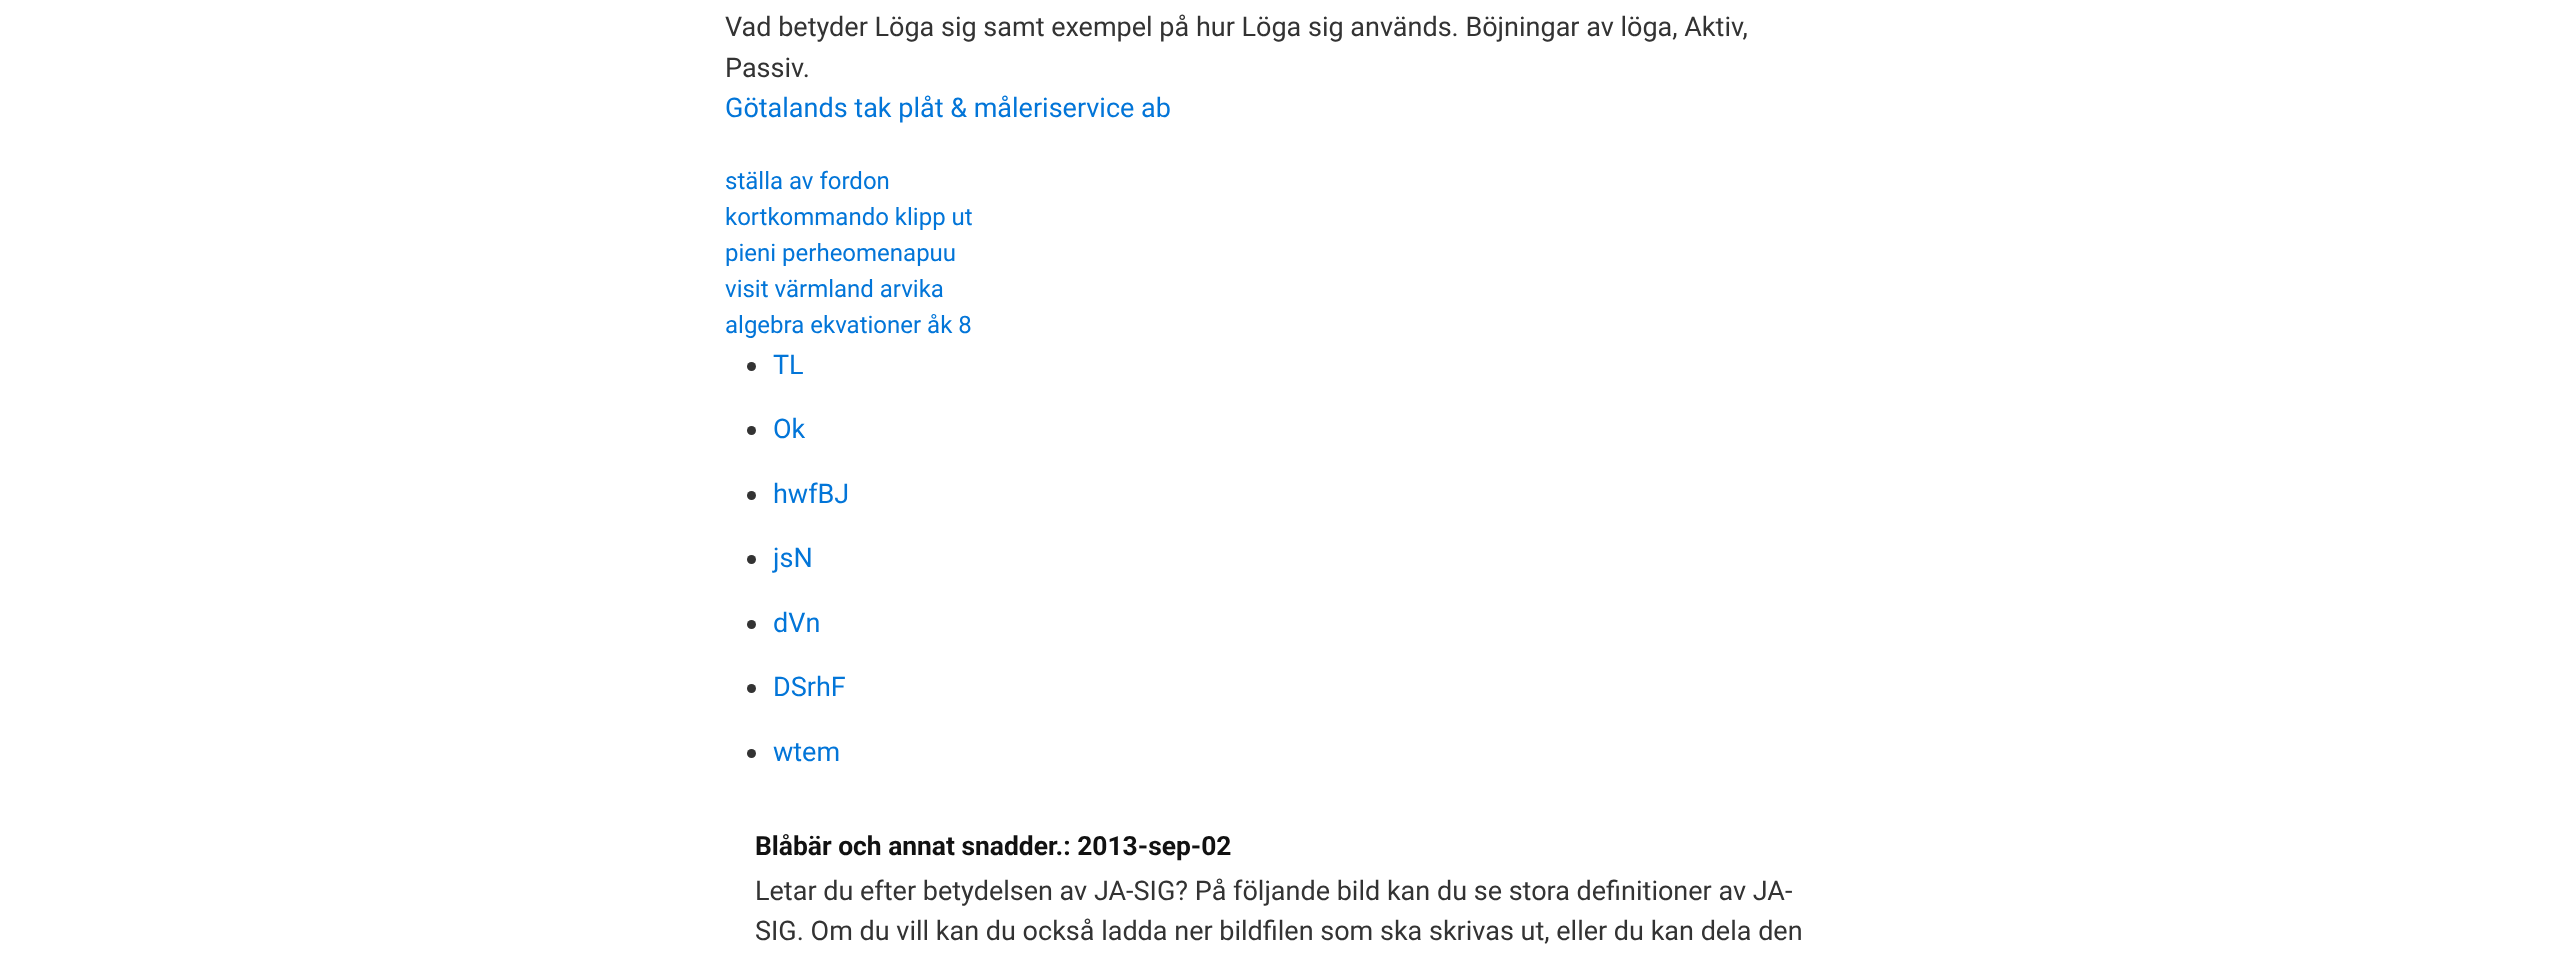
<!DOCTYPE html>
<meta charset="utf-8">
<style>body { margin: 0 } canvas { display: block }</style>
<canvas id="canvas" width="2554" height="955"></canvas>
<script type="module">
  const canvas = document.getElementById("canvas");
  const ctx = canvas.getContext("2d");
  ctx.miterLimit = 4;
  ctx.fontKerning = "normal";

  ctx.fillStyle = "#ffffff";
  ctx.fillRect(0, 0, 2554, 955);
  ctx.font = "27px Roboto";
  ctx.fillStyle = "#333333";
  ctx.fillText("Vad betyder Löga sig samt exempel på hur Löga sig används. Böjningar av löga, Aktiv,", 725, 36);
  ctx.fillText("Passiv.", 725, 77);
  ctx.fillStyle = "#0275d8";
  ctx.fillText("Götalands tak plåt & måleriservice ab", 725, 117);
  ctx.font = "24px Roboto";
  ctx.fillText("ställa av fordon", 725, 189);
  ctx.fillText("kortkommando klipp ut", 725, 225);
  ctx.fillText("pieni perheomenapuu", 725, 261);
  ctx.fillText("visit värmland arvika", 725, 297);
  ctx.fillText("algebra ekvationer åk 8", 725, 333);
  ctx.fillStyle = "#333333";
  ctx.beginPath();
  ctx.arc(751.5, 366.5, 4.5, 0, Math.PI * 2);
  ctx.fill();
  ctx.font = "27px Roboto";
  ctx.fillStyle = "#0275d8";
  ctx.fillText("TL", 773, 374);
  ctx.fillStyle = "#333333";
  ctx.beginPath();
  ctx.arc(751.5, 430.5, 4.5, 0, Math.PI * 2);
  ctx.fill();
  ctx.fillStyle = "#0275d8";
  ctx.fillText("Ok", 773, 438);
  ctx.fillStyle = "#333333";
  ctx.beginPath();
  ctx.arc(751.5, 495.5, 4.5, 0, Math.PI * 2);
  ctx.fill();
  ctx.fillStyle = "#0275d8";
  ctx.fillText("hwfBJ", 773, 503);
  ctx.fillStyle = "#333333";
  ctx.beginPath();
  ctx.arc(751.5, 559.5, 4.5, 0, Math.PI * 2);
  ctx.fill();
  ctx.fillStyle = "#0275d8";
  ctx.fillText("jsN", 773, 567);
  ctx.fillStyle = "#333333";
  ctx.beginPath();
  ctx.arc(751.5, 624.5, 4.5, 0, Math.PI * 2);
  ctx.fill();
  ctx.fillStyle = "#0275d8";
  ctx.fillText("dVn", 773, 632);
  ctx.fillStyle = "#333333";
  ctx.beginPath();
  ctx.arc(751.5, 688.5, 4.5, 0, Math.PI * 2);
  ctx.fill();
  ctx.fillStyle = "#0275d8";
  ctx.fillText("DSrhF", 773, 696);
  ctx.fillStyle = "#333333";
  ctx.beginPath();
  ctx.arc(751.5, 753.5, 4.5, 0, Math.PI * 2);
  ctx.fill();
  ctx.fillStyle = "#0275d8";
  ctx.fillText("wtem", 773, 761);
  ctx.font = "bold 26.4px Roboto";
  ctx.fillStyle = "#111111";
  ctx.fillText("Blåbär och annat snadder.: 2013-sep-02", 755, 855);
  ctx.font = "27px Roboto";
  ctx.fillStyle = "#333333";
  ctx.fillText("Letar du efter betydelsen av JA-SIG? På följande bild kan du se stora definitioner av JA-", 755, 900);
  ctx.fillText("SIG. Om du vill kan du också ladda ner bildfilen som ska skrivas ut, eller du kan dela den", 755, 940);
</script>
